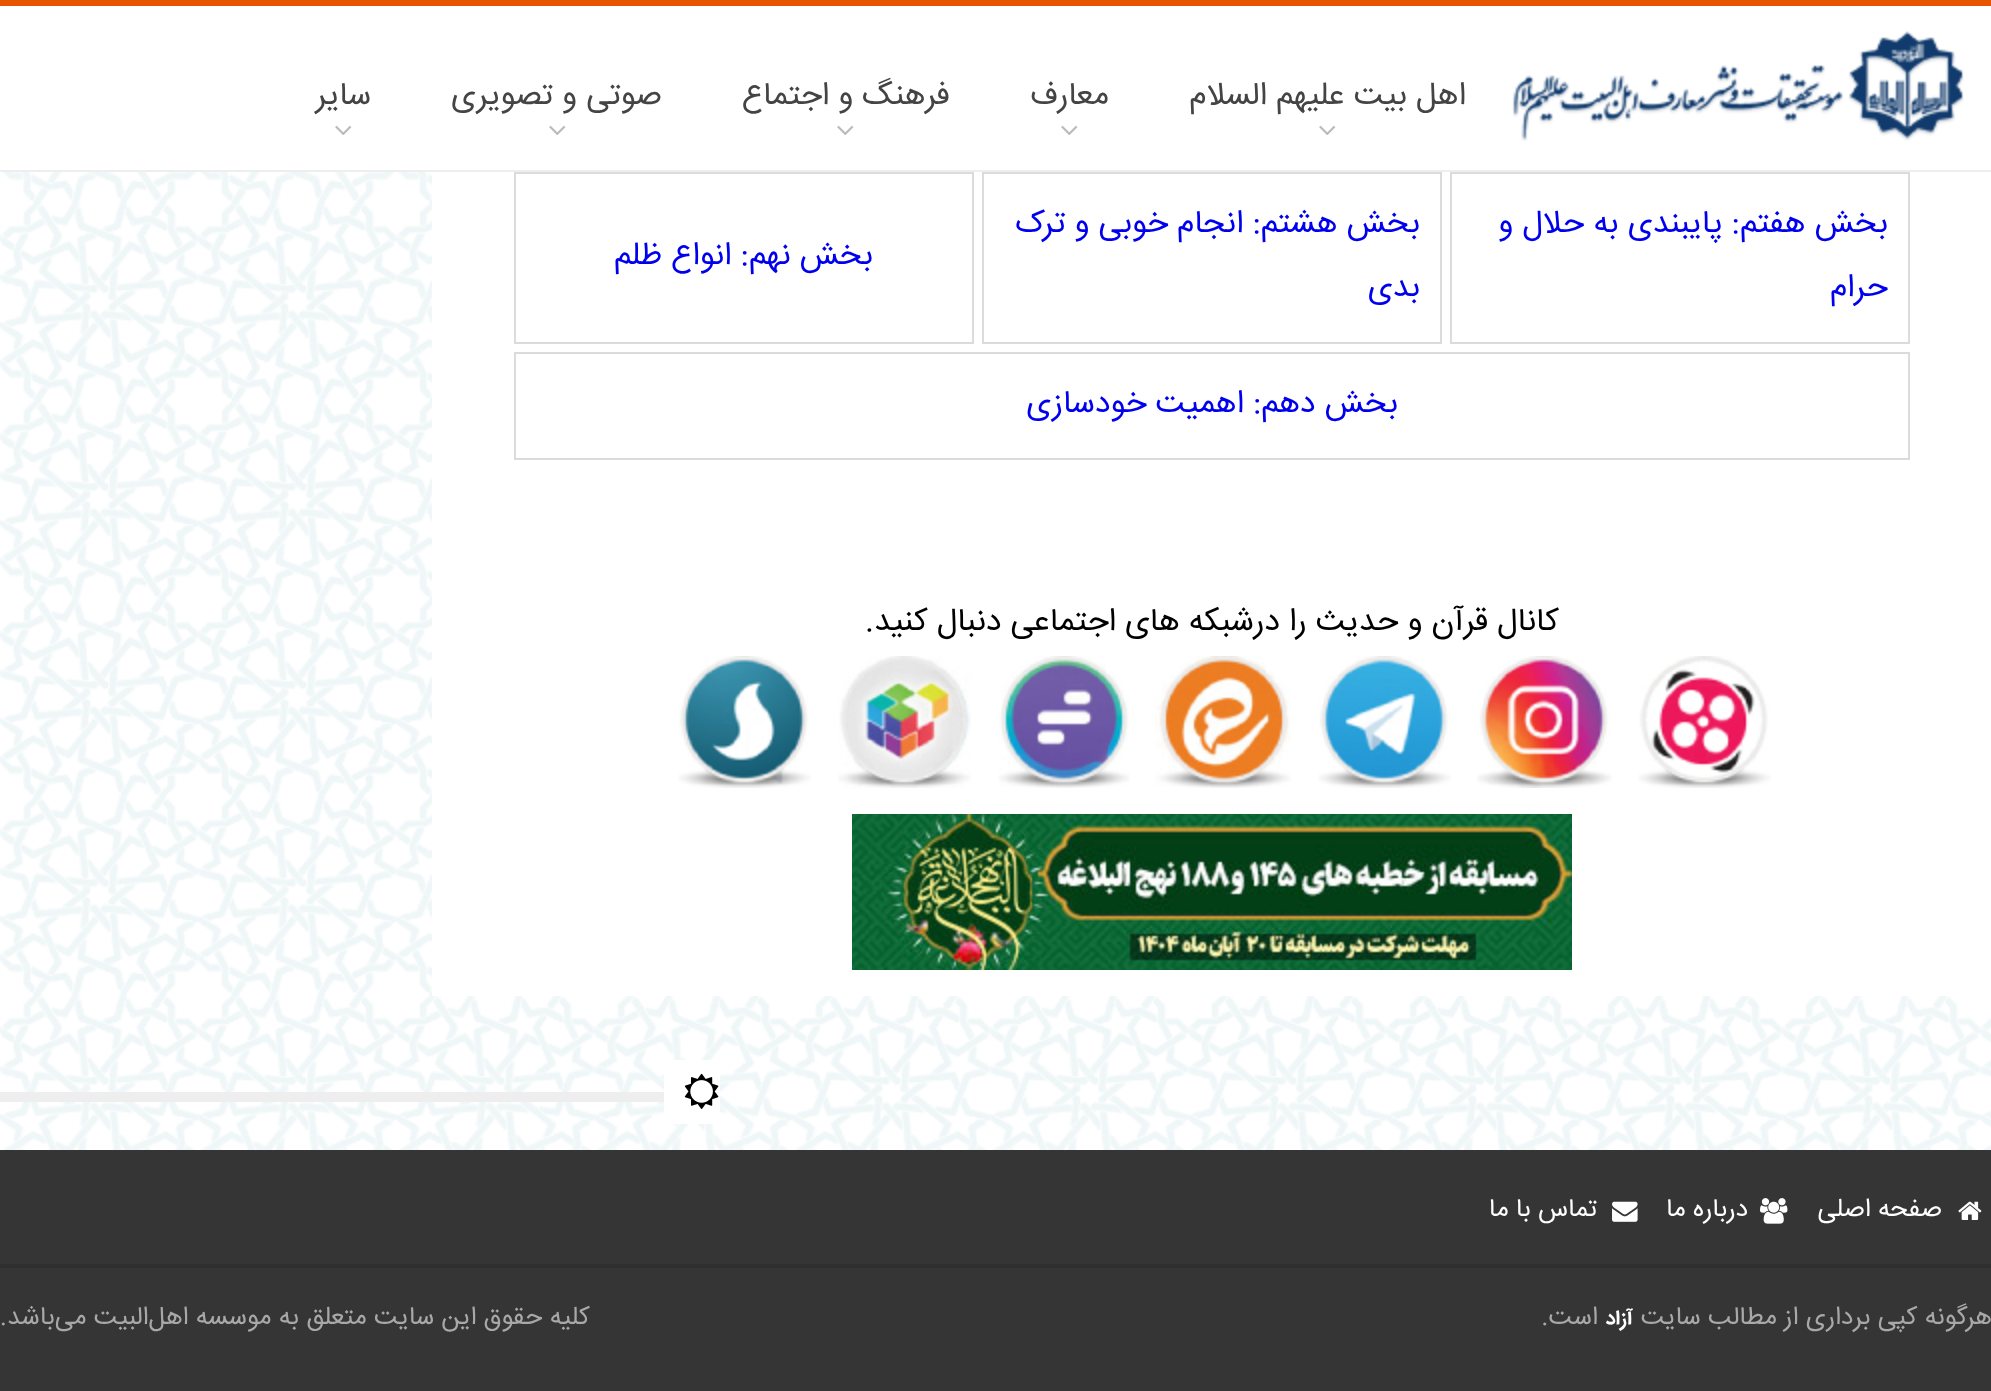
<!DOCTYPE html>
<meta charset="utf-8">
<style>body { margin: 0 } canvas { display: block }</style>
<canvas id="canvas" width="1991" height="1391"></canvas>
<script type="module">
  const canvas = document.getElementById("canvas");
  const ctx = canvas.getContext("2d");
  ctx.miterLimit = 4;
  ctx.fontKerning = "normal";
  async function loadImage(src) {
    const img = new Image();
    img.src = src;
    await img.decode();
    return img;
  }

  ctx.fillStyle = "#ffffff";
  ctx.fillRect(0, 0, 1991, 1391);
  ctx.drawImage(await loadImage("img1.png"), 0, 172, 1991, 978);
  ctx.drawImage(await loadImage("img2.png"), 0, 172, 1991, 978);
  ctx.fillStyle = "#e85500";
  ctx.fillRect(0, 0, 1991, 6);
  ctx.fillStyle = "#eeeeee";
  ctx.fillRect(0, 170, 1991, 2);
  ctx.drawImage(await loadImage("img3.png"), 1512, 31, 452, 110);
  ctx.direction = "rtl";
  ctx.font = "32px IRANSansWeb";
  ctx.fillStyle = "#444444";
  ctx.fillText("اهل بیت علیهم السلام", 1466, 104);
  ctx.drawImage(await loadImage("img4.png"), 1319, 125, 17, 10);
  ctx.fillText("معارف", 1109, 104);
  ctx.drawImage(await loadImage("img4.png"), 1061, 125, 17, 10);
  ctx.fillText("فرهنگ و اجتماع", 950, 104);
  ctx.drawImage(await loadImage("img4.png"), 837, 125, 17, 10);
  ctx.fillText("صوتی و تصویری", 662, 104);
  ctx.drawImage(await loadImage("img4.png"), 549, 125, 17, 10);
  ctx.fillText("سایر", 371, 104);
  ctx.drawImage(await loadImage("img4.png"), 335, 125, 17, 10);
  ctx.fillStyle = "#ffffff";
  ctx.fillRect(432, 172, 1559, 824);
  ctx.strokeStyle = "#dbdbdb";
  ctx.lineWidth = 2;
  ctx.strokeRect(1451, 173, 458, 170);
  ctx.fillStyle = "#0000ee";
  ctx.fillText("بخش هفتم: پایبندی به حلال و", 1888, 232);
  ctx.fillText("حرام", 1888, 296);
  ctx.strokeRect(983, 173, 458, 170);
  ctx.fillText("بخش هشتم: انجام خوبی و ترک", 1420, 232);
  ctx.fillText("بدی", 1420, 296);
  ctx.strokeRect(515, 173, 458, 170);
  ctx.fillText("بخش نهم: انواع ظلم", 873, 264);
  ctx.strokeRect(515, 353, 1394, 106);
  ctx.fillText("بخش دهم: اهمیت خودسازی", 1398, 412);
  ctx.fillStyle = "#000000";
  ctx.fillText("کانال قرآن و حدیث را درشبکه های اجتماعی دنبال کنید.", 1559, 630);
  ctx.drawImage(await loadImage("img5.png"), 1638, 656, 133, 132);
  ctx.drawImage(await loadImage("img6.png"), 1477, 656, 135, 132);
  ctx.drawImage(await loadImage("img7.png"), 1318, 656, 133, 132);
  ctx.drawImage(await loadImage("img8.png"), 1155, 656, 136, 132);
  ctx.drawImage(await loadImage("img9.png"), 998, 656, 132, 132);
  ctx.drawImage(await loadImage("img10.png"), 838, 656, 133, 132);
  ctx.drawImage(await loadImage("img11.png"), 678, 656, 133, 132);
  ctx.drawImage(await loadImage("img12.png"), 852, 814, 720, 156);
  ctx.fillStyle = "#ffffff";
  ctx.fillRect(664, 1060, 56, 64);
  ctx.drawImage(await loadImage("img13.png"), 684, 1073, 35, 36);
  ctx.fillStyle = "#eeeeee";
  ctx.fillRect(0, 1092, 664, 10);
  ctx.fillStyle = "#353535";
  ctx.fillRect(0, 1150, 1991, 241);
  ctx.drawImage(await loadImage("img14.png"), 1958, 1201, 24, 19);
  ctx.font = "25.6px IRANSansWeb";
  ctx.fillStyle = "#ffffff";
  ctx.fillText("صفحه اصلی", 1942, 1216);
  ctx.drawImage(await loadImage("img15.png"), 1760, 1198, 28, 26);
  ctx.fillText("درباره ما", 1748, 1216);
  ctx.drawImage(await loadImage("img16.png"), 1612, 1201, 26, 21);
  ctx.fillText("تماس با ما", 1597, 1216);
  ctx.fillStyle = "#2f2f2f";
  ctx.fillRect(0, 1264, 1991, 4);
  ctx.fillStyle = "#a8a8a8";
  ctx.fillText("هرگونه کپی برداری از مطالب سایت", 1992, 1324);
  ctx.font = "bold 20px IRANSansWeb";
  ctx.fillStyle = "#ffffff";
  ctx.fillText("آزاد", 1633, 1324);
  ctx.font = "25.6px IRANSansWeb";
  ctx.fillStyle = "#a8a8a8";
  ctx.fillText("است.", 1598, 1324);
  ctx.fillText("کلیه حقوق این سایت متعلق به موسسه اهل‌البیت می‌باشد.", 590, 1324);
</script>
